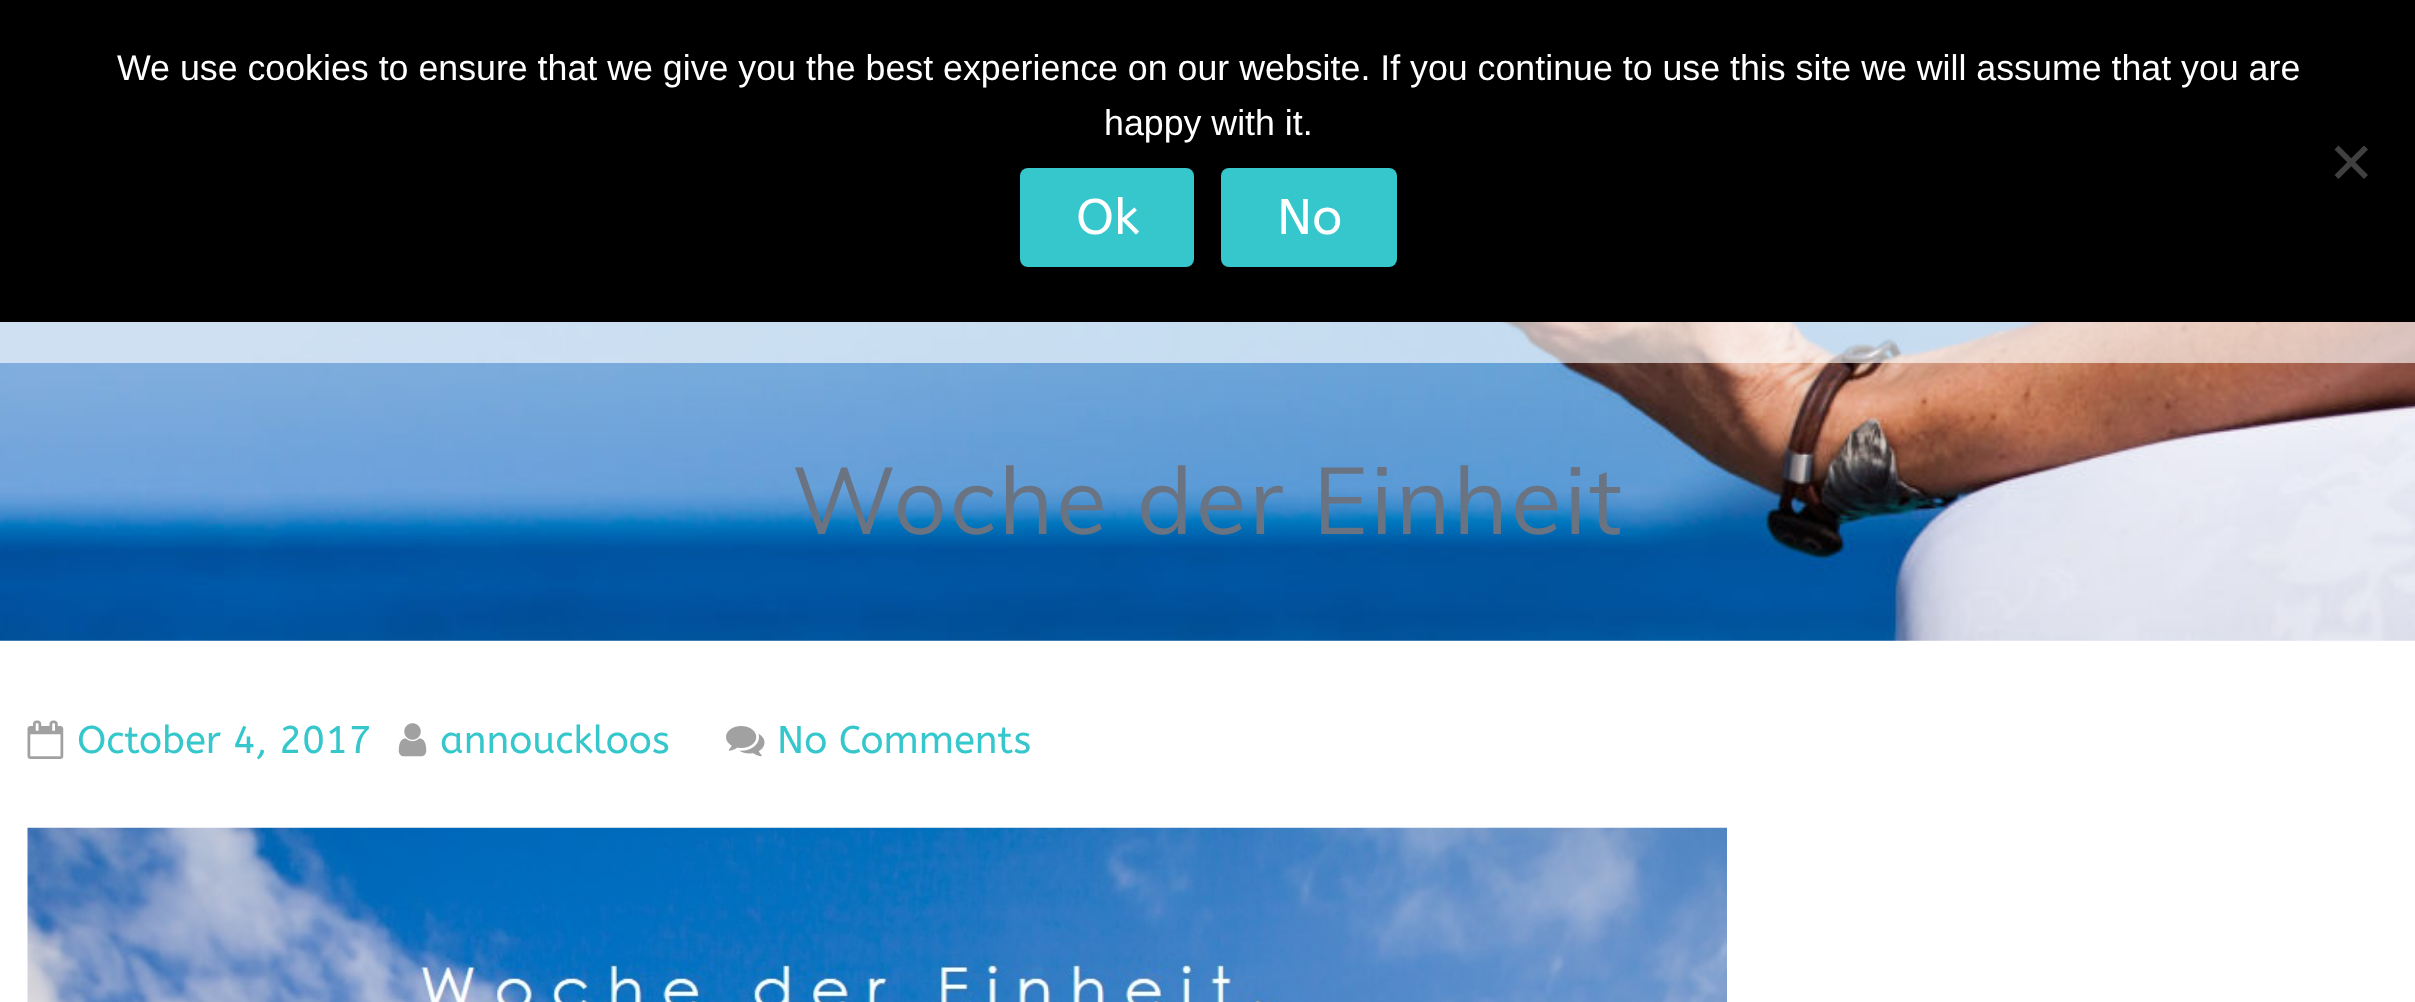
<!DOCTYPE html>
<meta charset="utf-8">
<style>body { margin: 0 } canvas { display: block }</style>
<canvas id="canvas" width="2415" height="1002"></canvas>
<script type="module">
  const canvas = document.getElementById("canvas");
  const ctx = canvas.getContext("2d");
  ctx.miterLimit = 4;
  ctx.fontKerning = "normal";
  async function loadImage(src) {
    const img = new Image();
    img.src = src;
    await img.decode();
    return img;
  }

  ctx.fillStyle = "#ffffff";
  ctx.fillRect(0, 0, 2415, 1002);
  ctx.fillStyle = "#000000";
  ctx.fillRect(0, 0, 2415, 322);
  ctx.font = "35.75px Liberation Sans";
  ctx.fillStyle = "#ffffff";
  ctx.fillText("We use cookies to ensure that we give you the best experience on our website. If you continue to use this site we will assume that you are", 117, 80);
  ctx.fillText("happy with it.", 1104, 135);
  ctx.fillStyle = "#404040";
  ctx.beginPath();
  ctx.moveTo(2364, 145.5);
  ctx.lineTo(2368, 149.5);
  ctx.lineTo(2338.5, 179);
  ctx.lineTo(2334.5, 175);
  ctx.closePath();
  ctx.fill();
  ctx.beginPath();
  ctx.moveTo(2334.5, 149.5);
  ctx.lineTo(2338.5, 145.5);
  ctx.lineTo(2368, 175);
  ctx.lineTo(2364, 179);
  ctx.closePath();
  ctx.fill();
  ctx.fillStyle = "#35c7cc";
  ctx.beginPath();
  ctx.roundRect(1020, 168, 174, 99, 8);
  ctx.fill();
  ctx.font = "50px ABeeZee";
  ctx.fillStyle = "#ffffff";
  ctx.fillText("Ok", 1076, 234);
  ctx.fillStyle = "#35c7cc";
  ctx.beginPath();
  ctx.roundRect(1221, 168, 176, 99, 8);
  ctx.fill();
  ctx.fillStyle = "#ffffff";
  ctx.fillText("No", 1277, 234);
  ctx.drawImage(await loadImage("img1.png"), 0, 322, 2415, 319);
  ctx.fillStyle = "rgba(255, 255, 255, 0.62)";
  ctx.fillRect(0, 322, 2415, 41);
  ctx.letterSpacing = "2.75px";
  ctx.font = "93.5px Muli";
  ctx.fillStyle = "#6a7382";
  ctx.fillText("Woche der Einheit", 792, 534);
  ctx.drawImage(await loadImage("img2.png"), 27, 720, 37, 39);
  ctx.letterSpacing = "0px";
  ctx.font = "38.5px ABeeZee";
  ctx.fillStyle = "#35c7cc";
  ctx.fillText("October 4, 2017", 77, 753);
  ctx.drawImage(await loadImage("img3.png"), 398, 723, 29, 34);
  ctx.fillText("annouckloos", 440, 753);
  ctx.drawImage(await loadImage("img4.png"), 726, 726, 39, 31);
  ctx.fillText("No Comments", 777, 753);
  ctx.drawImage(await loadImage("img5.png"), 27, 827, 1700, 175);
</script>
